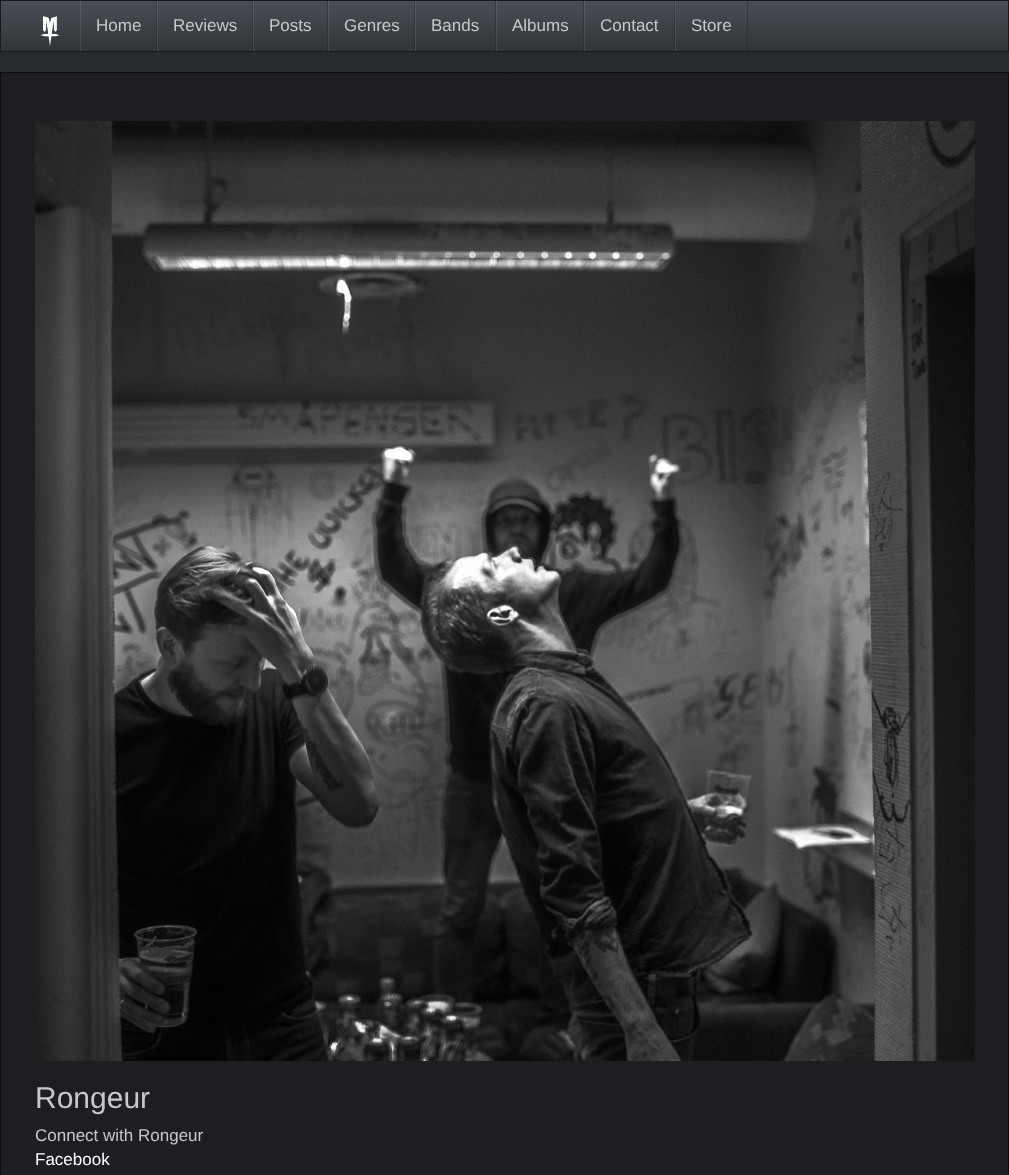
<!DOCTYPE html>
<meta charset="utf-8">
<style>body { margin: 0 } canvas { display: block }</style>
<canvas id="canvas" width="1009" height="1175"></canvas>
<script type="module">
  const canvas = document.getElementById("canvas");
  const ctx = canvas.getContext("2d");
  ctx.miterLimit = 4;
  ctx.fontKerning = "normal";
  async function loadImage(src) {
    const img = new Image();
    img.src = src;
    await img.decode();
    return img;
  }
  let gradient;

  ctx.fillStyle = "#272b30";
  ctx.fillRect(0, 0, 1009, 1175);
  gradient = ctx.createLinearGradient(505, 1, 505, 51);
  gradient.addColorStop(0, "#484e55");
  gradient.addColorStop(0.6, "#3a3f44");
  gradient.addColorStop(1, "#313539");
  ctx.fillStyle = gradient;
  ctx.fillRect(1, 1, 1007, 50);
  gradient = ctx.createLinearGradient(505, 1, 505, 51);
  gradient.addColorStop(0, "#5a6066");
  gradient.addColorStop(0.6, "#4e5257");
  gradient.addColorStop(1, "#46494d");
  ctx.fillStyle = gradient;
  ctx.fillRect(675, 1, 1, 50);
  gradient = ctx.createLinearGradient(505, 1, 505, 51);
  gradient.addColorStop(0, "#3a3e44");
  gradient.addColorStop(0.6, "#2e3236");
  gradient.addColorStop(1, "#272a2e");
  ctx.fillStyle = gradient;
  ctx.fillRect(747, 1, 1, 50);
  gradient = ctx.createLinearGradient(505, 1, 505, 51);
  gradient.addColorStop(0, "#5a6066");
  gradient.addColorStop(0.6, "#4e5257");
  gradient.addColorStop(1, "#46494d");
  ctx.fillStyle = gradient;
  ctx.fillRect(584, 1, 1, 50);
  gradient = ctx.createLinearGradient(505, 1, 505, 51);
  gradient.addColorStop(0, "#3a3e44");
  gradient.addColorStop(0.6, "#2e3236");
  gradient.addColorStop(1, "#272a2e");
  ctx.fillStyle = gradient;
  ctx.fillRect(674, 1, 1, 50);
  gradient = ctx.createLinearGradient(505, 1, 505, 51);
  gradient.addColorStop(0, "#5a6066");
  gradient.addColorStop(0.6, "#4e5257");
  gradient.addColorStop(1, "#46494d");
  ctx.fillStyle = gradient;
  ctx.fillRect(496, 1, 1, 50);
  gradient = ctx.createLinearGradient(505, 1, 505, 51);
  gradient.addColorStop(0, "#3a3e44");
  gradient.addColorStop(0.6, "#2e3236");
  gradient.addColorStop(1, "#272a2e");
  ctx.fillStyle = gradient;
  ctx.fillRect(583, 1, 1, 50);
  gradient = ctx.createLinearGradient(505, 1, 505, 51);
  gradient.addColorStop(0, "#5a6066");
  gradient.addColorStop(0.6, "#4e5257");
  gradient.addColorStop(1, "#46494d");
  ctx.fillStyle = gradient;
  ctx.fillRect(415, 1, 1, 50);
  gradient = ctx.createLinearGradient(505, 1, 505, 51);
  gradient.addColorStop(0, "#3a3e44");
  gradient.addColorStop(0.6, "#2e3236");
  gradient.addColorStop(1, "#272a2e");
  ctx.fillStyle = gradient;
  ctx.fillRect(495, 1, 1, 50);
  gradient = ctx.createLinearGradient(505, 1, 505, 51);
  gradient.addColorStop(0, "#5a6066");
  gradient.addColorStop(0.6, "#4e5257");
  gradient.addColorStop(1, "#46494d");
  ctx.fillStyle = gradient;
  ctx.fillRect(328, 1, 1, 50);
  gradient = ctx.createLinearGradient(505, 1, 505, 51);
  gradient.addColorStop(0, "#3a3e44");
  gradient.addColorStop(0.6, "#2e3236");
  gradient.addColorStop(1, "#272a2e");
  ctx.fillStyle = gradient;
  ctx.fillRect(414, 1, 1, 50);
  gradient = ctx.createLinearGradient(505, 1, 505, 51);
  gradient.addColorStop(0, "#5a6066");
  gradient.addColorStop(0.6, "#4e5257");
  gradient.addColorStop(1, "#46494d");
  ctx.fillStyle = gradient;
  ctx.fillRect(253, 1, 1, 50);
  gradient = ctx.createLinearGradient(505, 1, 505, 51);
  gradient.addColorStop(0, "#3a3e44");
  gradient.addColorStop(0.6, "#2e3236");
  gradient.addColorStop(1, "#272a2e");
  ctx.fillStyle = gradient;
  ctx.fillRect(327, 1, 1, 50);
  gradient = ctx.createLinearGradient(505, 1, 505, 51);
  gradient.addColorStop(0, "#5a6066");
  gradient.addColorStop(0.6, "#4e5257");
  gradient.addColorStop(1, "#46494d");
  ctx.fillStyle = gradient;
  ctx.fillRect(157, 1, 1, 50);
  gradient = ctx.createLinearGradient(505, 1, 505, 51);
  gradient.addColorStop(0, "#3a3e44");
  gradient.addColorStop(0.6, "#2e3236");
  gradient.addColorStop(1, "#272a2e");
  ctx.fillStyle = gradient;
  ctx.fillRect(252, 1, 1, 50);
  gradient = ctx.createLinearGradient(505, 1, 505, 51);
  gradient.addColorStop(0, "#5a6066");
  gradient.addColorStop(0.6, "#4e5257");
  gradient.addColorStop(1, "#46494d");
  ctx.fillStyle = gradient;
  ctx.fillRect(80, 1, 1, 50);
  gradient = ctx.createLinearGradient(505, 1, 505, 51);
  gradient.addColorStop(0, "#3a3e44");
  gradient.addColorStop(0.6, "#2e3236");
  gradient.addColorStop(1, "#272a2e");
  ctx.fillStyle = gradient;
  ctx.fillRect(156, 1, 1, 50);
  ctx.strokeStyle = "#17191b";
  ctx.strokeRect(0.5, 0.5, 1008, 51);
  ctx.drawImage(await loadImage("img1.png"), 40, 16, 20, 30);
  ctx.font = "17px Liberation Sans";
  ctx.fillStyle = "#c8c8c8";
  ctx.fillText("Home", 96, 31);
  ctx.fillText("Reviews", 173, 31);
  ctx.fillText("Posts", 269, 31);
  ctx.fillText("Genres", 344, 31);
  ctx.fillText("Bands", 431, 31);
  ctx.fillText("Albums", 512, 31);
  ctx.fillText("Contact", 600, 31);
  ctx.fillText("Store", 691, 31);
  ctx.fillStyle = "#1c1e22";
  ctx.beginPath();
  ctx.rect(0.5, 72.5, 1008, 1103);
  ctx.fill();
  ctx.strokeStyle = "#0b0c0e";
  ctx.stroke();
  ctx.drawImage(await loadImage("img2.png"), 35, 121, 940, 940);
  ctx.font = "30px Liberation Sans";
  ctx.fillStyle = "#c8c8c8";
  ctx.fillText("Rongeur", 35, 1108);
  ctx.font = "17px Liberation Sans";
  ctx.fillText("Connect with Rongeur", 35, 1141);
  ctx.fillStyle = "#ffffff";
  ctx.fillText("Facebook", 35, 1165);
</script>
